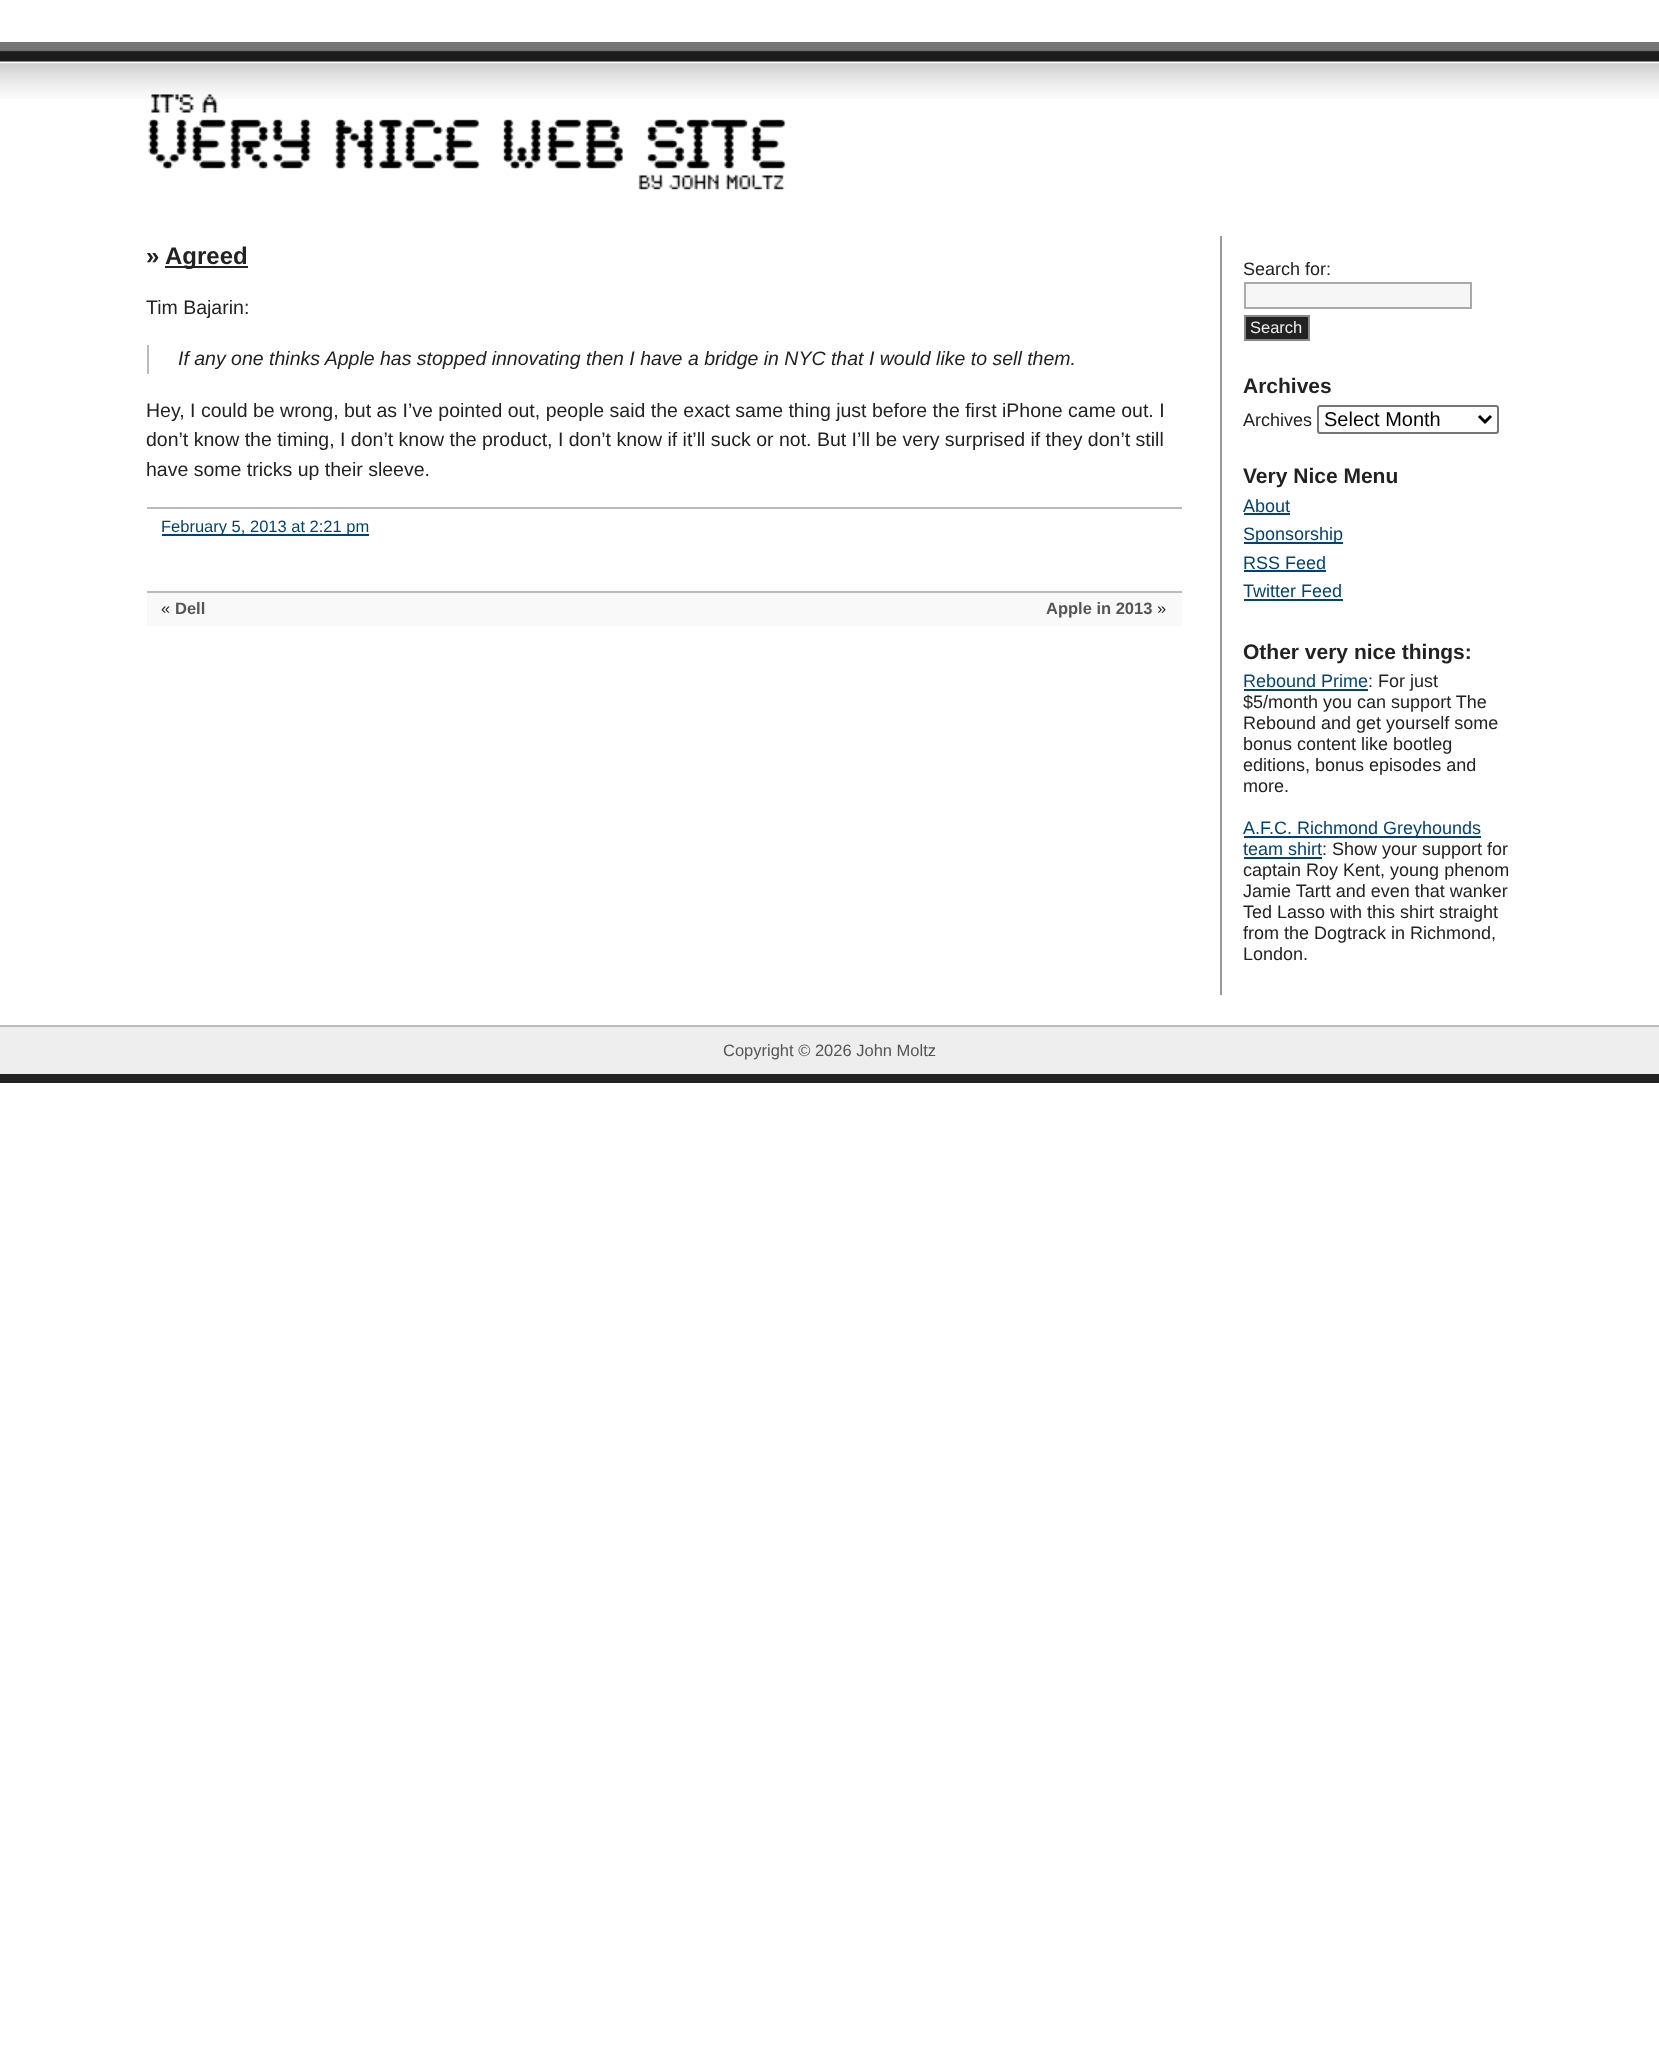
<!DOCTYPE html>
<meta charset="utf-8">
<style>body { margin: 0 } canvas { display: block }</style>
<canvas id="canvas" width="1659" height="2049"></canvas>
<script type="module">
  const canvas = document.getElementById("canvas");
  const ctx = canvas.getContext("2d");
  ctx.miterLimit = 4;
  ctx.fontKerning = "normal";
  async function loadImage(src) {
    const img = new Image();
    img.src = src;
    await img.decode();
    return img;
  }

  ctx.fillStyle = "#ffffff";
  ctx.fillRect(0, 0, 1659, 2049);
  ctx.drawImage(await loadImage("img1.png"), 0, 42, 1659, 57);
  ctx.drawImage(await loadImage("img2.png"), 148, 94, 639, 96);
  ctx.font = "bold 24px Liberation Sans";
  ctx.fillStyle = "#222222";
  ctx.fillText("»", 146, 264);
  ctx.fillRect(165, 266, 83, 2);
  ctx.fillText("Agreed", 165, 264);
  ctx.font = "19.5px Liberation Sans";
  ctx.fillText("Tim Bajarin:", 146, 314);
  ctx.fillStyle = "#bbbbbb";
  ctx.fillRect(147, 345, 2, 29);
  ctx.font = "italic 19.5px Liberation Sans";
  ctx.fillStyle = "#222222";
  ctx.fillText("If any one thinks Apple has stopped innovating then I have a bridge in NYC that I would like to sell them.", 178, 365);
  ctx.font = "19.5px Liberation Sans";
  ctx.fillText("Hey, I could be wrong, but as I’ve pointed out, people said the exact same thing just before the first iPhone came out. I", 146, 417);
  ctx.fillText("don’t know the timing, I don’t know the product, I don’t know if it’ll suck or not. But I’ll be very surprised if they don’t still", 146, 446);
  ctx.fillText("have some tricks up their sleeve.", 146, 476);
  ctx.fillStyle = "#bbbbbb";
  ctx.fillRect(147, 507, 1035, 2);
  ctx.fillStyle = "#004477";
  ctx.fillRect(162, 534, 207, 2);
  ctx.font = "16.5px Liberation Sans";
  ctx.fillText("February 5, 2013 at 2:21 pm", 161, 532);
  ctx.fillStyle = "#f9f9f9";
  ctx.fillRect(147, 593, 1035, 33);
  ctx.fillStyle = "#bbbbbb";
  ctx.fillRect(147, 591, 1035, 2);
  ctx.fillStyle = "#222222";
  ctx.fillText("«", 161, 614);
  ctx.font = "bold 16.5px Liberation Sans";
  ctx.fillStyle = "#555555";
  ctx.fillText("Dell", 175, 614);
  ctx.fillText("Apple in 2013", 1046, 614);
  ctx.font = "16.5px Liberation Sans";
  ctx.fillStyle = "#222222";
  ctx.fillText("»", 1157, 614);
  ctx.fillStyle = "#999999";
  ctx.fillRect(1220, 236, 2, 759);
  ctx.font = "18px Liberation Sans";
  ctx.fillStyle = "#222222";
  ctx.fillText("Search for:", 1243, 275);
  ctx.fillStyle = "#f6f6f6";
  ctx.beginPath();
  ctx.rect(1245, 283, 226, 25);
  ctx.fill();
  ctx.strokeStyle = "#aaaaaa";
  ctx.lineWidth = 2;
  ctx.stroke();
  ctx.fillStyle = "#222222";
  ctx.beginPath();
  ctx.rect(1245, 316, 64, 24);
  ctx.fill();
  ctx.strokeStyle = "#888888";
  ctx.stroke();
  ctx.font = "16.5px Liberation Sans";
  ctx.fillStyle = "#eeeeee";
  ctx.fillText("Search", 1250, 333);
  ctx.font = "bold 21px Liberation Sans";
  ctx.fillStyle = "#222222";
  ctx.fillText("Archives", 1243, 393);
  ctx.font = "18px Liberation Sans";
  ctx.fillText("Archives", 1243, 426);
  ctx.beginPath();
  ctx.roundRect(1318, 406, 180, 27, 2);
  ctx.strokeStyle = "#767676";
  ctx.stroke();
  ctx.beginPath();
  ctx.moveTo(1479, 416);
  ctx.lineTo(1485, 422);
  ctx.lineTo(1491, 416);
  ctx.strokeStyle = "#000000";
  ctx.lineWidth = 3;
  ctx.stroke();
  ctx.font = "20px Liberation Sans";
  ctx.fillStyle = "#000000";
  ctx.fillText("Select Month", 1324, 426);
  ctx.font = "bold 21px Liberation Sans";
  ctx.fillStyle = "#222222";
  ctx.fillText("Very Nice Menu", 1243, 483);
  ctx.font = "18px Liberation Sans";
  ctx.fillStyle = "#004477";
  ctx.fillText("About", 1243, 512);
  ctx.fillRect(1244, 513, 46, 2);
  ctx.fillRect(1244, 542, 99, 2);
  ctx.fillText("Sponsorship", 1243, 540);
  ctx.fillText("RSS Feed", 1243, 569);
  ctx.fillRect(1244, 570, 82, 2);
  ctx.fillText("Twitter Feed", 1243, 597);
  ctx.fillRect(1244, 599, 99, 2);
  ctx.font = "bold 21px Liberation Sans";
  ctx.fillStyle = "#222222";
  ctx.fillText("Other very nice things:", 1243, 659);
  ctx.font = "18px Liberation Sans";
  ctx.fillStyle = "#004477";
  ctx.fillText("Rebound Prime", 1243, 687);
  ctx.fillRect(1244, 689, 124, 2);
  ctx.fillStyle = "#222222";
  ctx.fillText(": For just", 1368, 687);
  ctx.fillText("$5/month you can support The", 1243, 708);
  ctx.fillText("Rebound and get yourself some", 1243, 729);
  ctx.fillText("bonus content like bootleg", 1243, 750);
  ctx.fillText("editions, bonus episodes and", 1243, 771);
  ctx.fillText("more.", 1243, 792);
  ctx.fillStyle = "#004477";
  ctx.fillRect(1244, 836, 237, 2);
  ctx.fillText("A.F.C. Richmond Greyhounds", 1243, 834);
  ctx.fillText("team shirt", 1243, 855);
  ctx.fillRect(1244, 857, 78, 2);
  ctx.fillStyle = "#222222";
  ctx.fillText(": Show your support for", 1322, 855);
  ctx.fillText("captain Roy Kent, young phenom", 1243, 876);
  ctx.fillText("Jamie Tartt and even that wanker", 1243, 897);
  ctx.fillText("Ted Lasso with this shirt straight", 1243, 918);
  ctx.fillText("from the Dogtrack in Richmond,", 1243, 939);
  ctx.fillText("London.", 1243, 960);
  ctx.fillStyle = "#eeeeee";
  ctx.fillRect(0, 1027, 1659, 47);
  ctx.fillStyle = "#bbbbbb";
  ctx.fillRect(0, 1025, 1659, 2);
  ctx.fillStyle = "#222222";
  ctx.fillRect(0, 1074, 1659, 9);
  ctx.font = "16.5px Liberation Sans";
  ctx.fillStyle = "#555555";
  ctx.fillText("Copyright © 2026 John Moltz", 723, 1056);
</script>
